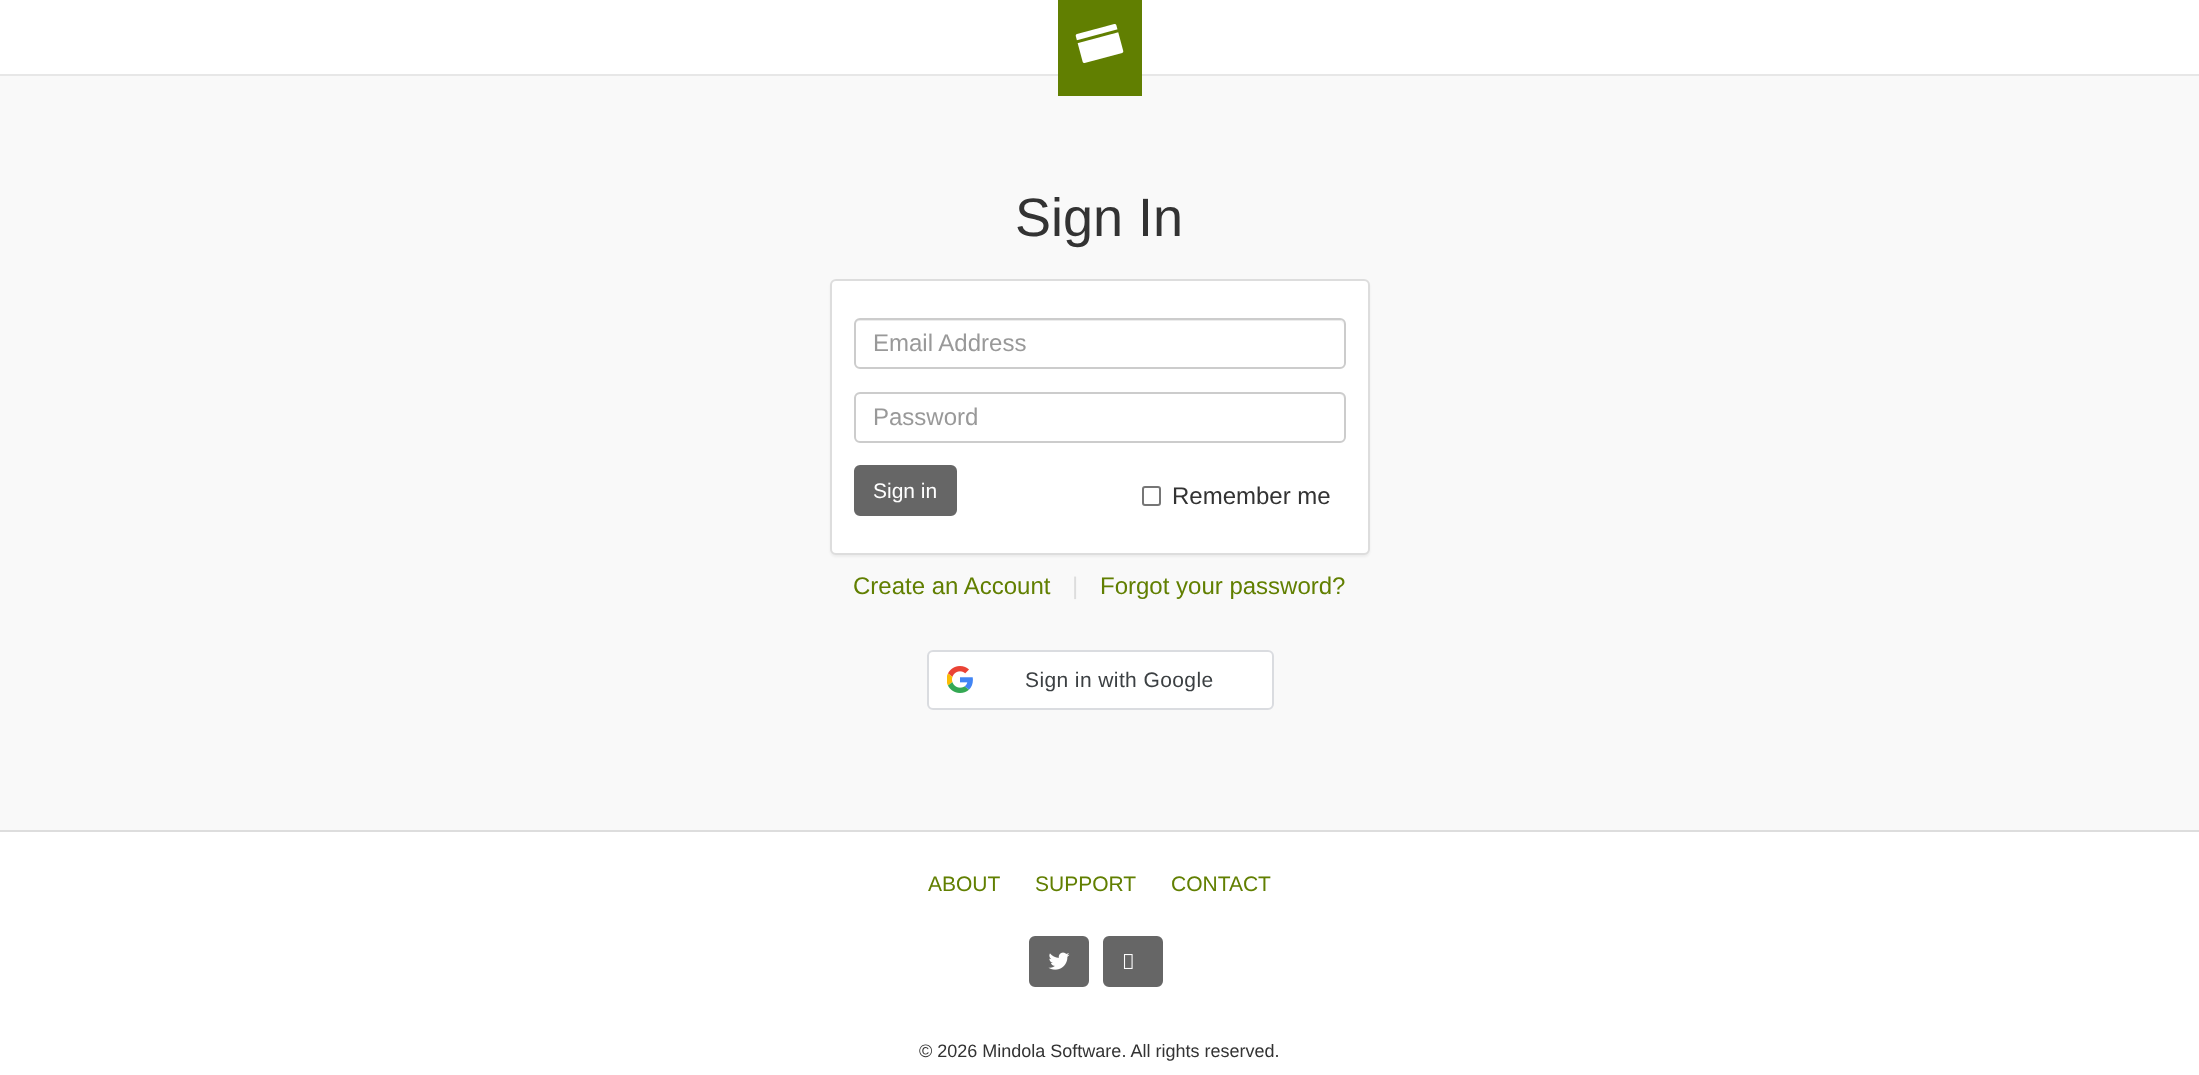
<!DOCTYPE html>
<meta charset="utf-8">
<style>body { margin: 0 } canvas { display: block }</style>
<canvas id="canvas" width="2199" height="1075"></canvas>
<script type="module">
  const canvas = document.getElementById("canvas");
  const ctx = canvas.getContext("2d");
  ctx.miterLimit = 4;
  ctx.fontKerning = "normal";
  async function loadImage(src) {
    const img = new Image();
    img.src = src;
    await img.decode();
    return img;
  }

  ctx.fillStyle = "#f9f9f9";
  ctx.fillRect(0, 0, 2199, 1075);
  ctx.fillStyle = "#ffffff";
  ctx.fillRect(0, 0, 2199, 74);
  ctx.fillStyle = "#e7e7e7";
  ctx.fillRect(0, 74, 2199, 2);
  ctx.fillStyle = "#617f01";
  ctx.fillRect(1058, 0, 84, 96);
  ctx.drawImage(await loadImage("img1.png"), 1075, 24, 49, 39);
  ctx.font = "54px Liberation Sans";
  ctx.fillStyle = "#333333";
  ctx.fillText("Sign In", 1015, 236);
  ctx.fillStyle = "rgba(0, 0, 0, 0.05)";
  ctx.filter = "blur(1px)";
  ctx.beginPath();
  ctx.roundRect(830, 281, 540, 276, 6);
  ctx.fill();
  ctx.filter = "none";
  ctx.fillStyle = "#ffffff";
  ctx.beginPath();
  ctx.roundRect(831, 280, 538, 274, 5);
  ctx.fill();
  ctx.strokeStyle = "#dddddd";
  ctx.lineWidth = 2;
  ctx.stroke();
  ctx.fillStyle = "#ececec";
  ctx.beginPath();
  ctx.moveTo(860, 321);
  ctx.lineTo(1340, 321);
  ctx.bezierCurveTo(1342, 321, 1344, 323, 1344, 326);
  ctx.lineTo(1344, 325);
  ctx.bezierCurveTo(1344, 322, 1342, 320, 1339, 320);
  ctx.lineTo(860, 320);
  ctx.bezierCurveTo(857, 320, 855, 322, 855, 325);
  ctx.lineTo(855, 326);
  ctx.bezierCurveTo(855, 323, 857, 321, 860, 321);
  ctx.closePath();
  ctx.fill();
  ctx.beginPath();
  ctx.roundRect(855, 319, 490, 49, 5);
  ctx.strokeStyle = "#cccccc";
  ctx.stroke();
  ctx.font = "24px Liberation Sans";
  ctx.fillStyle = "#999999";
  ctx.fillText("Email Address", 873, 351);
  ctx.fillStyle = "#ececec";
  ctx.beginPath();
  ctx.moveTo(860, 394);
  ctx.lineTo(1340, 394);
  ctx.bezierCurveTo(1342, 394, 1344, 397, 1344, 399);
  ctx.lineTo(1344, 398);
  ctx.bezierCurveTo(1344, 395, 1342, 393, 1339, 393);
  ctx.lineTo(860, 393);
  ctx.bezierCurveTo(857, 393, 855, 395, 855, 398);
  ctx.lineTo(855, 399);
  ctx.bezierCurveTo(855, 397, 857, 394, 860, 394);
  ctx.closePath();
  ctx.fill();
  ctx.beginPath();
  ctx.roundRect(855, 393, 490, 49, 5);
  ctx.stroke();
  ctx.fillStyle = "#999999";
  ctx.fillText("Password", 873, 425);
  ctx.fillStyle = "#666666";
  ctx.beginPath();
  ctx.roundRect(855, 466, 101, 49, 5);
  ctx.fill();
  ctx.strokeStyle = "#666666";
  ctx.stroke();
  ctx.font = "21px Liberation Sans";
  ctx.fillStyle = "#ffffff";
  ctx.fillText("Sign in", 873, 498);
  ctx.beginPath();
  ctx.roundRect(1143, 487, 17, 18, 2);
  ctx.strokeStyle = "#767676";
  ctx.stroke();
  ctx.font = "24px Liberation Sans";
  ctx.fillStyle = "#333333";
  ctx.fillText("Remember me", 1172, 504);
  ctx.fillStyle = "#617f01";
  ctx.fillText("Create an Account", 853, 594);
  ctx.fillStyle = "#dddddd";
  ctx.fillText("|", 1072, 594);
  ctx.fillStyle = "#617f01";
  ctx.fillText("Forgot your password?", 1100, 594);
  ctx.fillStyle = "#ffffff";
  ctx.beginPath();
  ctx.roundRect(928, 651, 345, 58, 5);
  ctx.fill();
  ctx.strokeStyle = "#dadce0";
  ctx.stroke();
  ctx.drawImage(await loadImage("img2.png"), 947, 666, 26, 27);
  ctx.letterSpacing = "0.4px";
  ctx.font = "21px Liberation Sans";
  ctx.fillStyle = "#3c4043";
  ctx.fillText("Sign in with Google", 1025, 687);
  ctx.fillStyle = "#ffffff";
  ctx.fillRect(0, 832, 2199, 243);
  ctx.fillStyle = "#dddddd";
  ctx.fillRect(0, 830, 2199, 2);
  ctx.letterSpacing = "0px";
  ctx.fillStyle = "#617f01";
  ctx.fillText("ABOUT", 928, 891);
  ctx.fillText("SUPPORT", 1035, 891);
  ctx.fillText("CONTACT", 1171, 891);
  ctx.fillStyle = "#666666";
  ctx.beginPath();
  ctx.roundRect(1030, 937, 58, 49, 5);
  ctx.fill();
  ctx.strokeStyle = "#666666";
  ctx.stroke();
  ctx.drawImage(await loadImage("img3.png"), 1048, 952, 22, 18);
  ctx.beginPath();
  ctx.roundRect(1104, 937, 58, 49, 5);
  ctx.fill();
  ctx.stroke();
  ctx.drawImage(await loadImage("img4.png"), 1123, 954, 10, 15);
  ctx.font = "18px Liberation Sans";
  ctx.fillStyle = "#333333";
  ctx.fillText("© 2026 Mindola Software. All rights reserved.", 919, 1057);
</script>
